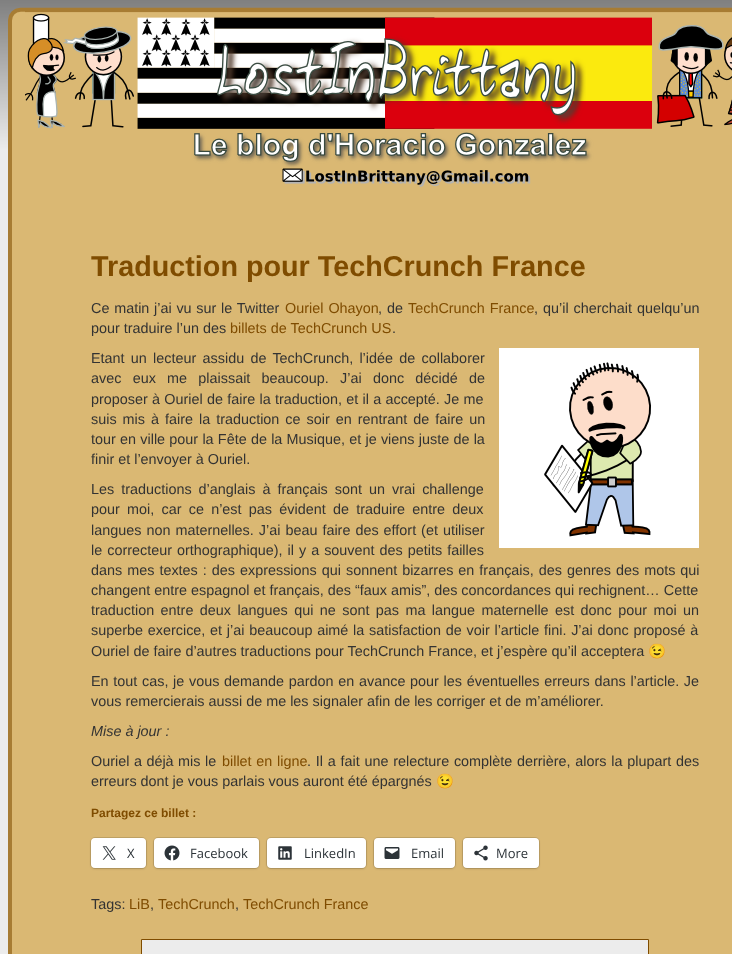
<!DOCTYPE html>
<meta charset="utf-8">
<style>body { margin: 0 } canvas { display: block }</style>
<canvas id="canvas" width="732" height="954"></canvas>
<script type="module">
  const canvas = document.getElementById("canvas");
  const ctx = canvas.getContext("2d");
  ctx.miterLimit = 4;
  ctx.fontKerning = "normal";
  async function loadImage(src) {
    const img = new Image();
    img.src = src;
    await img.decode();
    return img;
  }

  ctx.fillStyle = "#dab873";
  ctx.fillRect(0, 0, 732, 954);
  ctx.drawImage(await loadImage("img1.png"), 0, 0, 25, 200);
  ctx.drawImage(await loadImage("img2.png"), 25, 0, 707, 187);
  ctx.drawImage(await loadImage("img3.png"), 0, 200, 12, 754);
  ctx.font = "bold 28.75px Liberation Sans";
  ctx.fillStyle = "#7f4c00";
  ctx.fillText("Traduction pour TechCrunch France", 91, 276);
  ctx.wordSpacing = "0.75px";
  ctx.font = "14.4px Liberation Sans";
  ctx.fillStyle = "#333333";
  ctx.fillText("Ce matin j’ai vu sur le Twitter", 91, 313);
  ctx.wordSpacing = "1px";
  ctx.fillStyle = "#7f4c00";
  ctx.fillText("Ouriel Ohayon", 285, 313);
  ctx.fillStyle = "#333333";
  ctx.fillText(", de", 378, 313);
  ctx.fillStyle = "#7f4c00";
  ctx.fillText("TechCrunch France", 408, 313);
  ctx.fillStyle = "#333333";
  ctx.fillText(", qu’il cherchait quelqu’un", 534, 313);
  ctx.wordSpacing = "0px";
  ctx.fillText("pour traduire l’un des", 91, 333);
  ctx.fillStyle = "#7f4c00";
  ctx.fillText("billets de TechCrunch US", 230, 333);
  ctx.fillStyle = "#333333";
  ctx.fillText(".", 392, 333);
  ctx.wordSpacing = "2.25px";
  ctx.fillText("Etant un lecteur assidu de TechCrunch, l’idée de collaborer", 91, 363);
  ctx.wordSpacing = "7.25px";
  ctx.fillText("avec eux me plaissait beaucoup. J’ai donc décidé de", 91, 383);
  ctx.wordSpacing = "0.25px";
  ctx.fillText("proposer à Ouriel de faire la traduction, et il a accepté. Je me", 91, 404);
  ctx.wordSpacing = "2px";
  ctx.fillText("suis mis à faire la traduction ce soir en rentrant de faire un", 91, 424);
  ctx.wordSpacing = "0.25px";
  ctx.fillText("tour en ville pour la Fête de la Musique, et je viens juste de la", 91, 444);
  ctx.wordSpacing = "0px";
  ctx.fillText("finir et l’envoyer à Ouriel.", 91, 464);
  ctx.drawImage(await loadImage("img4.png"), 499, 348, 200, 200);
  ctx.wordSpacing = "3px";
  ctx.fillText("Les traductions d’anglais à français sont un vrai challenge", 91, 494);
  ctx.wordSpacing = "3.25px";
  ctx.fillText("pour moi, car ce n’est pas évident de traduire entre deux", 91, 514);
  ctx.wordSpacing = "1px";
  ctx.fillText("langues non maternelles. J’ai beau faire des effort (et utiliser", 91, 535);
  ctx.fillText("le correcteur orthographique), il y a souvent des petits failles", 91, 555);
  ctx.fillText("dans mes textes : des expressions qui sonnent bizarres en français, des genres des mots qui", 91, 575);
  ctx.wordSpacing = "0px";
  ctx.fillText("changent entre espagnol et français, des “faux amis”, des concordances qui rechignent… Cette", 91, 595);
  ctx.wordSpacing = "2.4px";
  ctx.fillText("traduction entre deux langues qui ne sont pas ma langue maternelle est donc pour moi un", 91, 615);
  ctx.wordSpacing = "0.75px";
  ctx.fillText("superbe exercice, et j’ai beaucoup aimé la satisfaction de voir l’article fini. J’ai donc proposé à", 91, 635);
  ctx.wordSpacing = "0px";
  ctx.fillText("Ouriel de faire d’autres traductions pour TechCrunch France, et j’espère qu’il acceptera", 91, 656);
  ctx.font = "14.4px Noto Color Emoji";
  ctx.fillText("😉", 648, 656);
  ctx.wordSpacing = "0.7px";
  ctx.font = "14.4px Liberation Sans";
  ctx.fillText("En tout cas, je vous demande pardon en avance pour les éventuelles erreurs dans l’article. Je", 91, 686);
  ctx.wordSpacing = "0px";
  ctx.fillText("vous remercierais aussi de me les signaler afin de les corriger et de m’améliorer.", 91, 706);
  ctx.font = "italic 14.4px Liberation Sans";
  ctx.fillText("Mise à jour :", 91, 736);
  ctx.wordSpacing = "0.5px";
  ctx.font = "14.4px Liberation Sans";
  ctx.fillText("Ouriel a déjà mis le", 91, 766);
  ctx.wordSpacing = "0.75px";
  ctx.fillStyle = "#7f4c00";
  ctx.fillText("billet en ligne", 222, 766);
  ctx.fillStyle = "#333333";
  ctx.fillText(". Il a fait une relecture complète derrière, alors la plupart des", 307, 766);
  ctx.wordSpacing = "0px";
  ctx.fillText("erreurs dont je vous parlais vous auront été épargnés", 91, 786);
  ctx.font = "14.4px Noto Color Emoji";
  ctx.fillText("😉", 436, 786);
  ctx.font = "bold 12px Liberation Sans";
  ctx.fillStyle = "#7f4c00";
  ctx.fillText("Partagez ce billet :", 91, 817);
  ctx.beginPath();
  ctx.roundRect(90.5, 837.5, 56, 31, 4.5);
  ctx.strokeStyle = "#c0a265";
  ctx.stroke();
  ctx.fillStyle = "rgba(0, 0, 0, 0.12)";
  ctx.filter = "blur(1px)";
  ctx.beginPath();
  ctx.roundRect(91, 839, 55, 30, 4);
  ctx.fill();
  ctx.filter = "none";
  ctx.fillStyle = "#ffffff";
  ctx.beginPath();
  ctx.roundRect(91, 838, 55, 30, 4);
  ctx.fill();
  ctx.drawImage(await loadImage("img5.png"), 102, 846, 14, 14);
  ctx.font = "13px Open Sans";
  ctx.fillStyle = "#2c3338";
  ctx.fillText("X", 127, 858);
  ctx.beginPath();
  ctx.roundRect(153.5, 837.5, 106, 31, 4.5);
  ctx.stroke();
  ctx.fillStyle = "rgba(0, 0, 0, 0.12)";
  ctx.filter = "blur(1px)";
  ctx.beginPath();
  ctx.roundRect(154, 839, 105, 30, 4);
  ctx.fill();
  ctx.filter = "none";
  ctx.fillStyle = "#ffffff";
  ctx.beginPath();
  ctx.roundRect(154, 838, 105, 30, 4);
  ctx.fill();
  ctx.drawImage(await loadImage("img6.png"), 164, 845, 16, 16);
  ctx.fillStyle = "#2c3338";
  ctx.fillText("Facebook", 190, 858);
  ctx.beginPath();
  ctx.roundRect(266.5, 837.5, 100, 31, 4.5);
  ctx.stroke();
  ctx.fillStyle = "rgba(0, 0, 0, 0.12)";
  ctx.filter = "blur(1px)";
  ctx.beginPath();
  ctx.roundRect(267, 839, 99, 30, 4);
  ctx.fill();
  ctx.filter = "none";
  ctx.fillStyle = "#ffffff";
  ctx.beginPath();
  ctx.roundRect(267, 838, 99, 30, 4);
  ctx.fill();
  ctx.drawImage(await loadImage("img7.png"), 278, 846, 14, 14);
  ctx.fillStyle = "#2c3338";
  ctx.fillText("LinkedIn", 304, 858);
  ctx.beginPath();
  ctx.roundRect(373.5, 837.5, 82, 31, 4.5);
  ctx.stroke();
  ctx.fillStyle = "rgba(0, 0, 0, 0.12)";
  ctx.filter = "blur(1px)";
  ctx.beginPath();
  ctx.roundRect(374, 839, 81, 30, 4);
  ctx.fill();
  ctx.filter = "none";
  ctx.fillStyle = "#ffffff";
  ctx.beginPath();
  ctx.roundRect(374, 838, 81, 30, 4);
  ctx.fill();
  ctx.drawImage(await loadImage("img8.png"), 384, 847, 16, 12);
  ctx.fillStyle = "#2c3338";
  ctx.fillText("Email", 411, 858);
  ctx.beginPath();
  ctx.roundRect(462.5, 837.5, 77, 31, 4.5);
  ctx.stroke();
  ctx.fillStyle = "rgba(0, 0, 0, 0.12)";
  ctx.filter = "blur(1px)";
  ctx.beginPath();
  ctx.roundRect(463, 839, 76, 30, 4);
  ctx.fill();
  ctx.filter = "none";
  ctx.fillStyle = "#ffffff";
  ctx.beginPath();
  ctx.roundRect(463, 838, 76, 30, 4);
  ctx.fill();
  ctx.drawImage(await loadImage("img9.png"), 474, 845, 14, 16);
  ctx.fillStyle = "#2c3338";
  ctx.fillText("More", 496, 858);
  ctx.font = "14.4px Liberation Sans";
  ctx.fillStyle = "#333333";
  ctx.fillText("Tags:", 91, 909);
  ctx.fillStyle = "#7f4c00";
  ctx.fillText("LiB", 129, 909);
  ctx.fillStyle = "#333333";
  ctx.fillText(",", 150, 909);
  ctx.fillStyle = "#7f4c00";
  ctx.fillText("TechCrunch", 158, 909);
  ctx.fillStyle = "#333333";
  ctx.fillText(",", 235, 909);
  ctx.fillStyle = "#7f4c00";
  ctx.fillText("TechCrunch France", 243, 909);
  ctx.fillStyle = "#ececec";
  ctx.beginPath();
  ctx.rect(141.5, 939.5, 507, 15);
  ctx.fill();
  ctx.strokeStyle = "#7f4c00";
  ctx.stroke();
</script>
